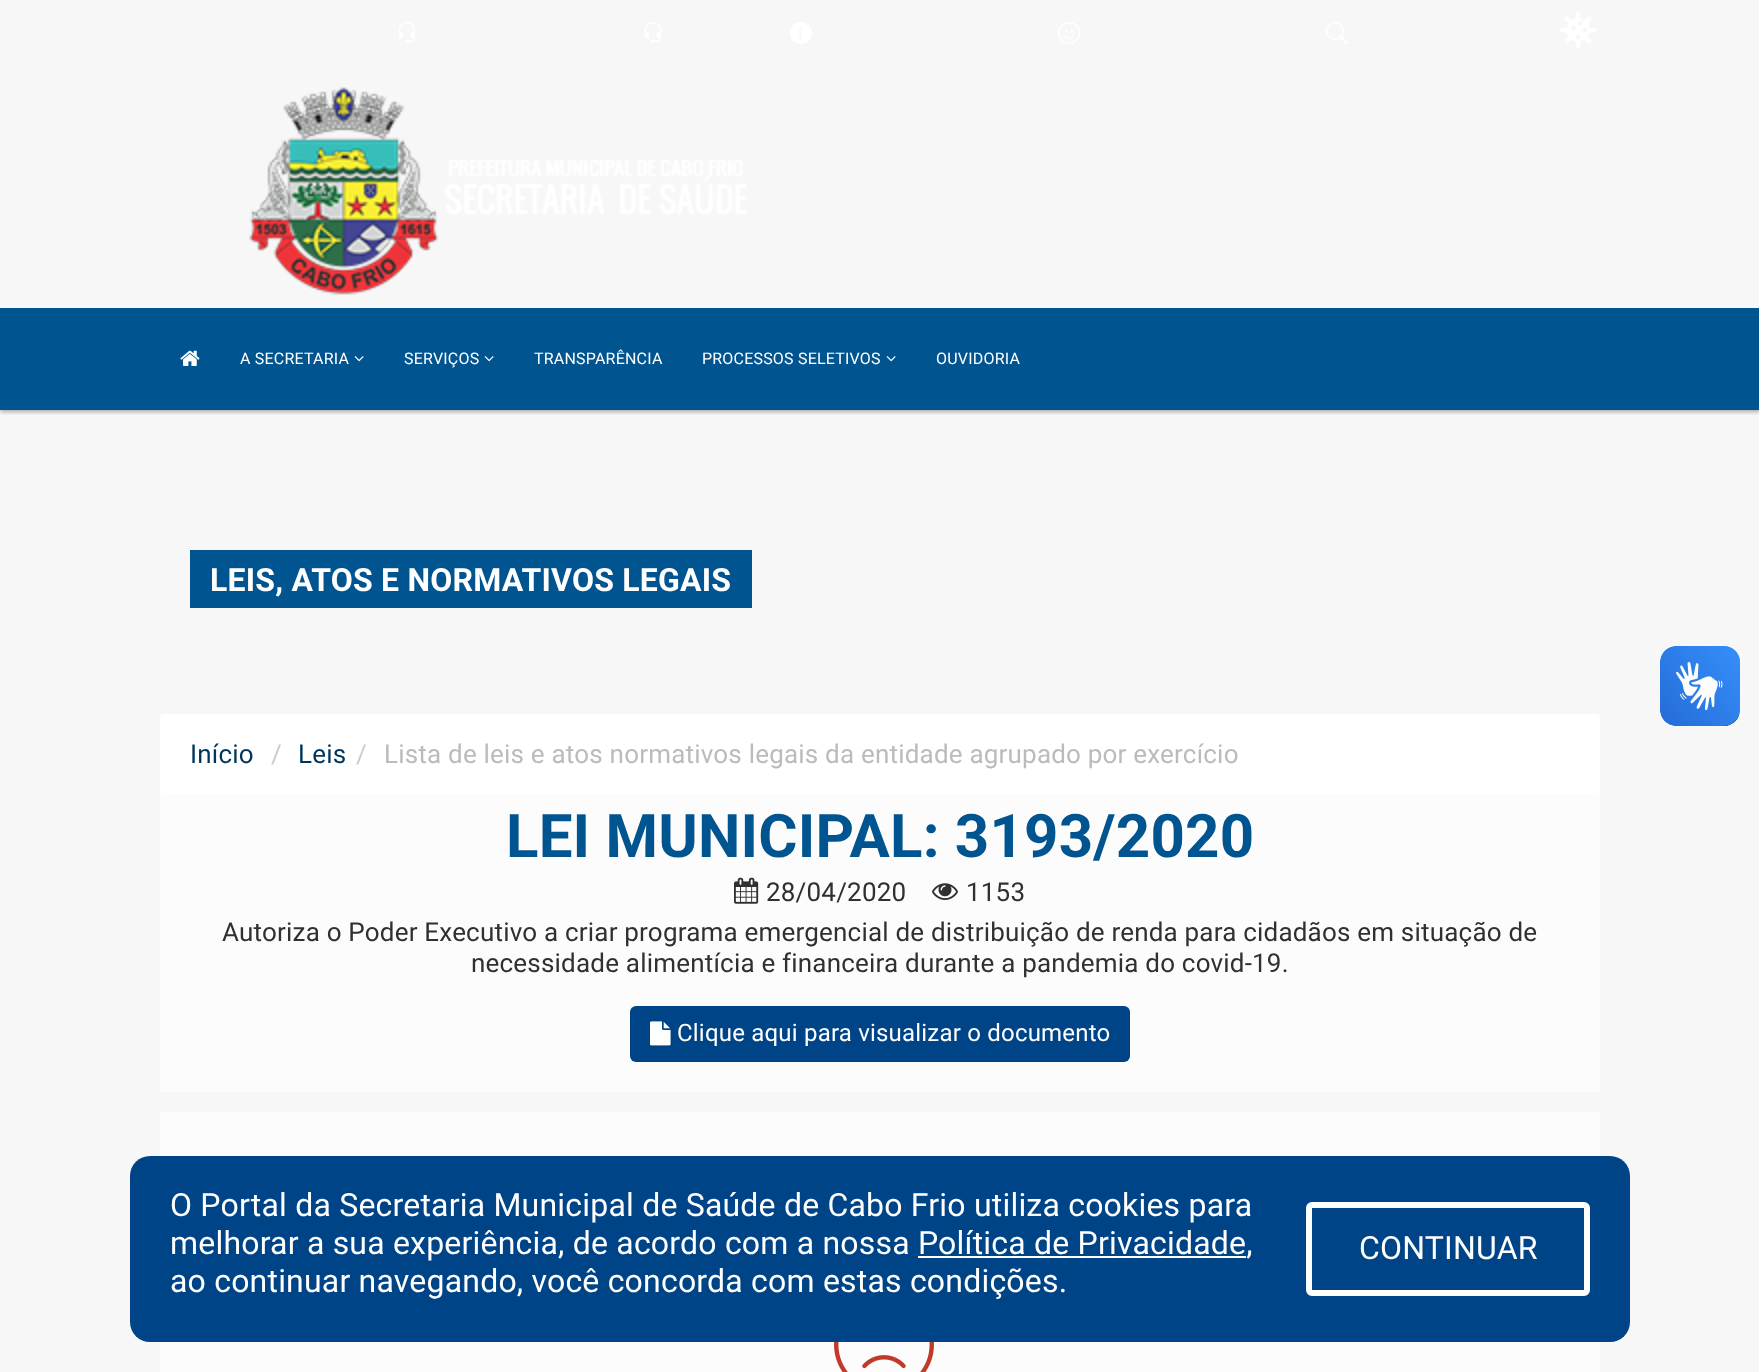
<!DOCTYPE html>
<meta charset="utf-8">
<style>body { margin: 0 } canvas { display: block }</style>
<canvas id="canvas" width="1759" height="1372"></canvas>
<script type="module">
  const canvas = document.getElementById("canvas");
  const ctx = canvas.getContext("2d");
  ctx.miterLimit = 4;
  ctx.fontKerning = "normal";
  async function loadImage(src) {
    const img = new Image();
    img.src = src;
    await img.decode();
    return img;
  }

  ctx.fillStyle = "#f7f7f7";
  ctx.fillRect(0, 0, 1759, 1372);
  ctx.save();
  ctx.beginPath();
  ctx.rect(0, 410, 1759, 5);
  ctx.clip();
  ctx.fillStyle = "rgba(0, 0, 0, 0.3)";
  ctx.filter = "blur(2px)";
  ctx.beginPath();
  ctx.rect(0, 2, 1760, 410);
  ctx.fill();
  ctx.filter = "none";
  ctx.restore();
  ctx.drawImage(await loadImage("img1.png"), 399, 22, 16, 21);
  ctx.drawImage(await loadImage("img1.png"), 645, 22, 16, 21);
  ctx.drawImage(await loadImage("img2.png"), 790, 22, 22, 22);
  ctx.drawImage(await loadImage("img3.png"), 1058, 22, 22, 22);
  ctx.drawImage(await loadImage("img4.png"), 1326, 22, 22, 22);
  ctx.drawImage(await loadImage("img5.png"), 1560, 12, 36, 36);
  ctx.drawImage(await loadImage("img6.png"), 249, 87, 498, 208);
  ctx.fillStyle = "#005490";
  ctx.fillRect(0, 308, 1759, 102);
  ctx.drawImage(await loadImage("img7.png"), 180, 350, 20, 16);
  ctx.letterSpacing = "0.2px";
  ctx.font = "16px Roboto";
  ctx.fillStyle = "#ffffff";
  ctx.fillText("A SECRETARIA", 240, 364);
  ctx.drawImage(await loadImage("img8.png"), 354, 356, 10, 6);
  ctx.fillText("SERVIÇOS", 404, 364);
  ctx.drawImage(await loadImage("img8.png"), 484, 356, 10, 6);
  ctx.fillText("TRANSPARÊNCIA", 534, 364);
  ctx.fillText("PROCESSOS SELETIVOS", 702, 364);
  ctx.drawImage(await loadImage("img8.png"), 886, 356, 10, 6);
  ctx.fillText("OUVIDORIA", 936, 364);
  ctx.fillStyle = "#005490";
  ctx.fillRect(190, 550, 562, 58);
  ctx.font = "bold 32px Roboto";
  ctx.fillStyle = "#ffffff";
  ctx.fillText("LEIS, ATOS E NORMATIVOS LEGAIS", 210, 591);
  ctx.drawImage(await loadImage("img9.png"), 1660, 646, 80, 80);
  ctx.drawImage(await loadImage("img10.png"), 1660, 646, 80, 80);
  ctx.fillStyle = "#fcfcfc";
  ctx.fillRect(160, 714, 1440, 378);
  ctx.fillStyle = "#ffffff";
  ctx.beginPath();
  ctx.roundRect(160, 714, 1440, 80, 6);
  ctx.fill();
  ctx.font = "26px Roboto";
  ctx.fillStyle = "#00365d";
  ctx.fillText("Início", 190, 763);
  ctx.fillStyle = "#cccccc";
  ctx.fillText("/", 271, 763);
  ctx.fillStyle = "#00365d";
  ctx.fillText("Leis", 298, 763);
  ctx.fillStyle = "#cccccc";
  ctx.fillText("/", 356, 763);
  ctx.fillStyle = "#bbbbbb";
  ctx.fillText("Lista de leis e atos normativos legais da entidade agrupado por exercício", 384, 763);
  ctx.font = "bold 60px Roboto";
  ctx.fillStyle = "#005490";
  ctx.fillText("LEI MUNICIPAL: 3193/2020", 506, 857);
  ctx.drawImage(await loadImage("img11.png"), 734, 877, 25, 27);
  ctx.font = "26px Roboto";
  ctx.fillStyle = "#303030";
  ctx.fillText("28/04/2020", 766, 901);
  ctx.drawImage(await loadImage("img12.png"), 932, 883, 26, 17);
  ctx.fillText("1153", 966, 901);
  ctx.fillText("Autoriza o Poder Executivo a criar programa emergencial de distribuição de renda para cidadãos em situação de", 222, 941);
  ctx.fillText("necessidade alimentícia e financeira durante a pandemia do covid-19.", 471, 972);
  ctx.fillStyle = "#004488";
  ctx.beginPath();
  ctx.roundRect(630, 1006, 500, 56, 6);
  ctx.fill();
  ctx.drawImage(await loadImage("img13.png"), 650, 1021, 21, 25);
  ctx.font = "24px Roboto";
  ctx.fillStyle = "#ffffff";
  ctx.fillText("Clique aqui para visualizar o documento", 677, 1041);
  ctx.fillStyle = "#fcfcfc";
  ctx.fillRect(160, 1112, 1440, 260);
  ctx.drawImage(await loadImage("img14.png"), 834, 1342, 100, 30);
  ctx.fillStyle = "#004488";
  ctx.beginPath();
  ctx.roundRect(130, 1156, 1500, 186, 20);
  ctx.fill();
  ctx.font = "32px Roboto";
  ctx.fillStyle = "#ffffff";
  ctx.fillText("O Portal da Secretaria Municipal de Saúde de Cabo Frio utiliza cookies para", 170, 1216);
  ctx.fillText("melhorar a sua experiência, de acordo com a nossa Política de Privacidade,", 170, 1254);
  ctx.fillRect(918, 1256, 328, 2);
  ctx.fillText("ao continuar navegando, você concorda com estas condições.", 170, 1292);
  ctx.beginPath();
  ctx.roundRect(1309, 1205, 278, 88, 3);
  ctx.strokeStyle = "#ffffff";
  ctx.lineWidth = 6;
  ctx.stroke();
  ctx.fillText("CONTINUAR", 1359, 1259);
</script>
